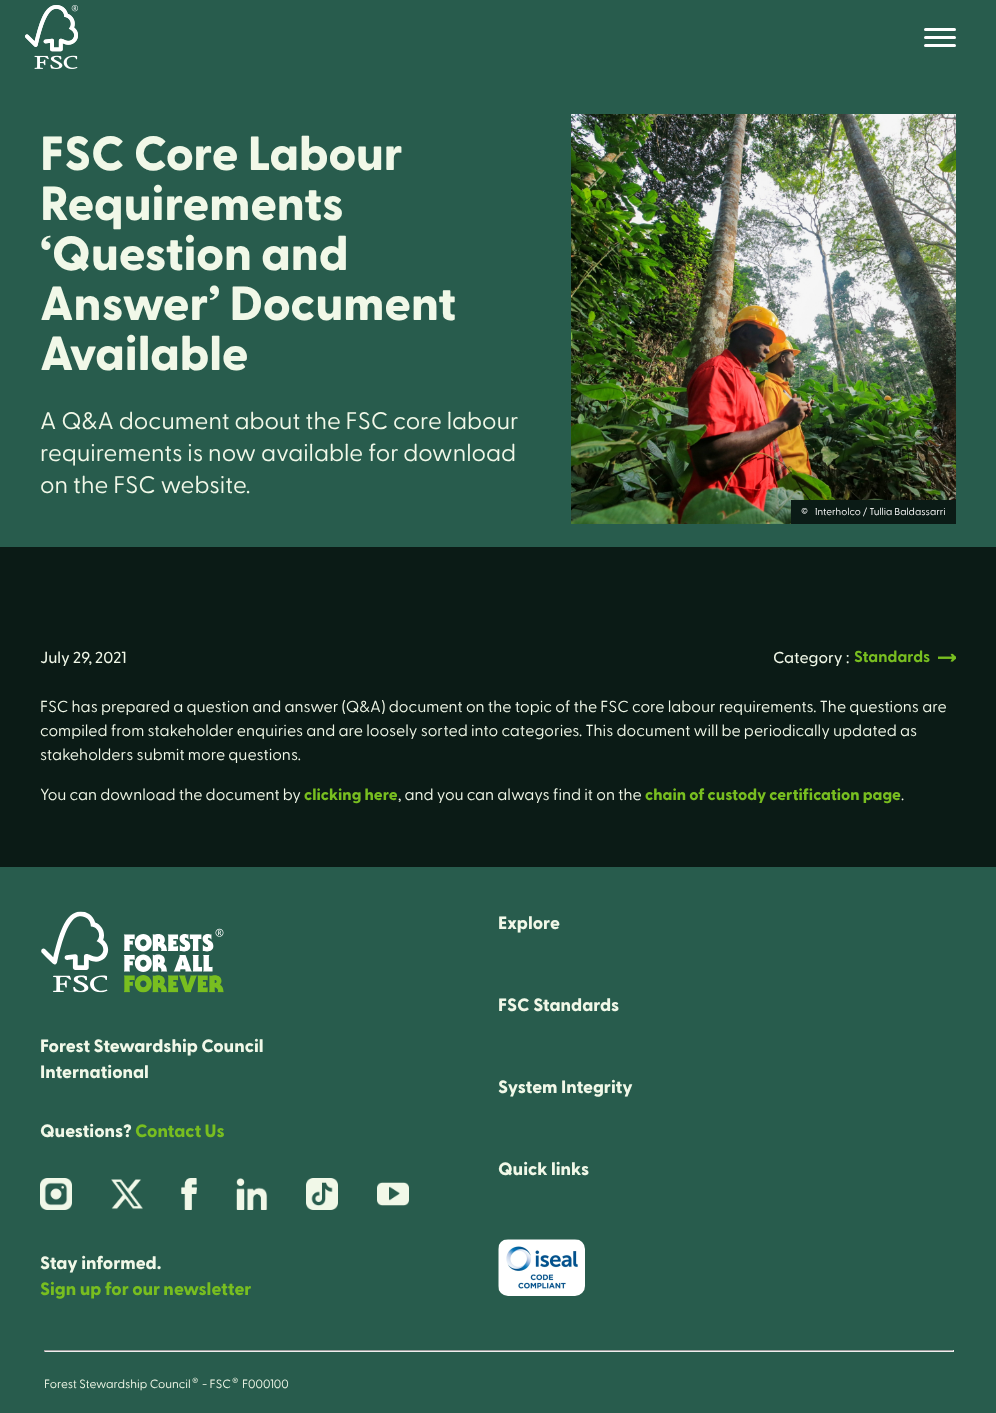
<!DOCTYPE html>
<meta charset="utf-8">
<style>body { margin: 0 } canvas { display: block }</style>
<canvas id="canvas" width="996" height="1413"></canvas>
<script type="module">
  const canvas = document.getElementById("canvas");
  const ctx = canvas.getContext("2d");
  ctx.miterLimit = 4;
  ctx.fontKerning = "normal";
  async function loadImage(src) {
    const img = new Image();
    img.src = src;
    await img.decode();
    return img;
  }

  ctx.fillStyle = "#0b1b16";
  ctx.fillRect(0, 0, 996, 1413);
  ctx.fillStyle = "#285c4d";
  ctx.fillRect(0, 0, 996, 547);
  ctx.drawImage(await loadImage("img1.png"), 25, 5, 53, 64);
  ctx.fillStyle = "#ffffff";
  ctx.beginPath();
  ctx.roundRect(924, 28, 32, 3, 1.5);
  ctx.fill();
  ctx.beginPath();
  ctx.roundRect(924, 36, 32, 3, 1.5);
  ctx.fill();
  ctx.beginPath();
  ctx.roundRect(924, 44, 32, 3, 1.5);
  ctx.fill();
  ctx.font = "800 48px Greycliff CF";
  ctx.fillStyle = "#f1f8e8";
  ctx.fillText("FSC Core Labour", 40, 170);
  ctx.fillText("Requirements", 40, 220);
  ctx.fillText("‘Question and", 40, 270);
  ctx.fillText("Answer’ Document", 40, 320);
  ctx.fillText("Available", 40, 370);
  ctx.font = "24px Greycliff CF";
  ctx.fillText("A Q&A document about the FSC core labour", 40, 429);
  ctx.fillText("requirements is now available for download", 40, 461);
  ctx.fillText("on the FSC website.", 40, 493);
  ctx.drawImage(await loadImage("img2.png"), 571, 114, 385, 410);
  ctx.fillStyle = "#0b1b16";
  ctx.fillRect(791, 500, 165, 24);
  ctx.font = "10px Greycliff CF";
  ctx.fillStyle = "#ffffff";
  ctx.fillText("©", 801, 515);
  ctx.fillText("Interholco / Tullia Baldassarri", 815, 515);
  ctx.font = "500 16px Greycliff CF";
  ctx.fillStyle = "#f1f8e8";
  ctx.fillText("July 29, 2021", 40, 663);
  ctx.fillText("Category :", 773, 663);
  ctx.font = "bold 16px Greycliff CF";
  ctx.fillStyle = "#78be20";
  ctx.fillText("Standards", 854, 662);
  ctx.drawImage(await loadImage("img3.png"), 938, 653, 18, 9);
  ctx.font = "16px Greycliff CF";
  ctx.fillStyle = "#f1f8e8";
  ctx.fillText("FSC has prepared a question and answer (Q&A) document on the topic of the FSC core labour requirements. The questions are", 40, 712);
  ctx.fillText("compiled from stakeholder enquiries and are loosely sorted into categories. This document will be periodically updated as", 40, 736);
  ctx.fillText("stakeholders submit more questions.", 40, 760);
  ctx.fillText("You can download the document by", 40, 800);
  ctx.font = "800 16px Greycliff CF";
  ctx.fillStyle = "#78be20";
  ctx.fillText("clicking here", 304, 800);
  ctx.font = "16px Greycliff CF";
  ctx.fillStyle = "#f1f8e8";
  ctx.fillText(", and you can always find it on the", 398, 800);
  ctx.font = "800 16px Greycliff CF";
  ctx.fillStyle = "#78be20";
  ctx.fillText("chain of custody certification page", 645, 800);
  ctx.font = "16px Greycliff CF";
  ctx.fillStyle = "#f1f8e8";
  ctx.fillText(".", 901, 800);
  ctx.fillStyle = "#285c4d";
  ctx.fillRect(0, 867, 996, 546);
  ctx.font = "800 18px Greycliff CF";
  ctx.fillStyle = "#f1f8e8";
  ctx.fillText("Explore", 498, 929);
  ctx.drawImage(await loadImage("img4.png"), 41, 911, 183, 82);
  ctx.fillText("Forest Stewardship Council", 40, 1052);
  ctx.fillText("International", 40, 1078);
  ctx.fillText("Questions?", 40, 1137);
  ctx.fillStyle = "#78be20";
  ctx.fillText("Contact Us", 135, 1137);
  ctx.drawImage(await loadImage("img5.png"), 40, 1178, 32, 32);
  ctx.drawImage(await loadImage("img6.png"), 111, 1179, 32, 31);
  ctx.drawImage(await loadImage("img7.png"), 181, 1178, 16, 32);
  ctx.drawImage(await loadImage("img8.png"), 236, 1178, 32, 32);
  ctx.drawImage(await loadImage("img9.png"), 306, 1178, 32, 32);
  ctx.drawImage(await loadImage("img10.png"), 377, 1182, 32, 24);
  ctx.fillStyle = "#f1f8e8";
  ctx.fillText("Stay informed.", 40, 1269);
  ctx.fillStyle = "#78be20";
  ctx.fillText("Sign up for our newsletter", 40, 1295);
  ctx.fillStyle = "#f1f8e8";
  ctx.fillText("FSC Standards", 498, 1011);
  ctx.fillText("System Integrity", 498, 1093);
  ctx.fillText("Quick links", 498, 1175);
  ctx.drawImage(await loadImage("img11.png"), 498, 1239, 87, 57);
  ctx.fillStyle = "#9f9f9f";
  ctx.fillRect(44, 1350, 910, 1);
  ctx.fillStyle = "#eeeeee";
  ctx.fillRect(953, 1350, 1, 2);
  ctx.fillRect(44, 1351, 910, 1);
  ctx.fillStyle = "#9f9f9f";
  ctx.fillRect(44, 1350, 1, 2);
  ctx.font = "12px Greycliff CF";
  ctx.fillStyle = "#f1f8e8";
  ctx.fillText("Forest Stewardship Council", 44, 1388);
  ctx.font = "9px Greycliff CF";
  ctx.fillText("®", 192, 1384);
  ctx.font = "12px Greycliff CF";
  ctx.fillText("- FSC", 202, 1388);
  ctx.font = "9px Greycliff CF";
  ctx.fillText("®", 232, 1384);
  ctx.font = "12px Greycliff CF";
  ctx.fillText("F000100", 242, 1388);
</script>
